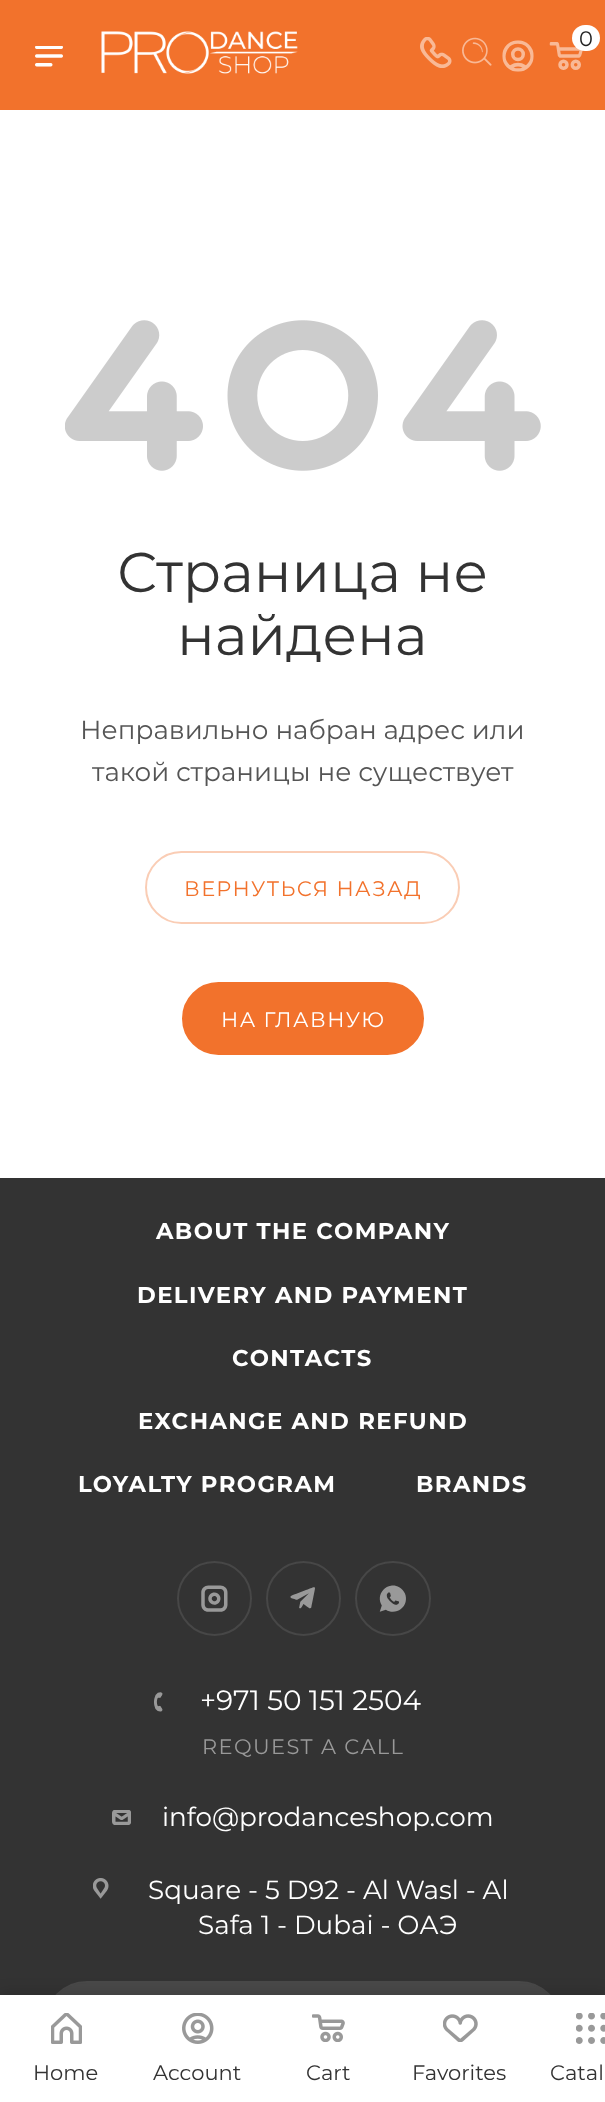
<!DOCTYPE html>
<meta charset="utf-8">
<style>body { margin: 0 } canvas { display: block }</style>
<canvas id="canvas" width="605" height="2102"></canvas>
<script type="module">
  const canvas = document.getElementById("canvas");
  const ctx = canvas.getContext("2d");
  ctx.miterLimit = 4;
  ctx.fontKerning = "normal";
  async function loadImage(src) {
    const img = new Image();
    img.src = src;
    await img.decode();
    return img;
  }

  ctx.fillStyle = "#ffffff";
  ctx.fillRect(0, 0, 605, 2102);
  ctx.fillStyle = "#f2722c";
  ctx.fillRect(0, 0, 605, 110);
  ctx.drawImage(await loadImage("img1.png"), 101, 31, 197, 43);
  ctx.drawImage(await loadImage("img2.png"), 420, 37, 32, 31);
  ctx.drawImage(await loadImage("img3.png"), 462, 37, 30, 29);
  ctx.drawImage(await loadImage("img4.png"), 502, 40, 32, 32);
  ctx.drawImage(await loadImage("img5.png"), 549, 42, 34, 28);
  ctx.fillStyle = "#ffffff";
  ctx.beginPath();
  ctx.roundRect(572, 25, 28, 26, 13);
  ctx.fill();
  ctx.font = "21px Montserrat";
  ctx.fillStyle = "#222222";
  ctx.fillText("0", 579, 46);
  ctx.drawImage(await loadImage("img6.png"), 35, 46, 28, 21);
  ctx.drawImage(await loadImage("img7.png"), 65, 320, 476, 151);
  ctx.font = "56px Montserrat";
  ctx.fillStyle = "#333333";
  ctx.fillText("Страница не", 117, 592);
  ctx.fillText("найдена", 177, 655);
  ctx.font = "26.25px Montserrat";
  ctx.fillStyle = "#555555";
  ctx.fillText("Неправильно набран адрес или", 80, 739);
  ctx.fillText("такой страницы не существует", 92, 781);
  ctx.beginPath();
  ctx.roundRect(146, 852, 313, 71, 35.5);
  ctx.strokeStyle = "#facdb5";
  ctx.lineWidth = 2;
  ctx.stroke();
  ctx.letterSpacing = "1.4px";
  ctx.font = "21px Montserrat";
  ctx.fillStyle = "#f2722c";
  ctx.fillText("ВЕРНУТЬСЯ НАЗАД", 184, 896);
  ctx.beginPath();
  ctx.roundRect(183, 983, 240, 71, 35.5);
  ctx.fill();
  ctx.strokeStyle = "#f2722c";
  ctx.stroke();
  ctx.fillStyle = "#ffffff";
  ctx.fillText("НА ГЛАВНУЮ", 221, 1027);
  ctx.fillStyle = "#333333";
  ctx.fillRect(0, 1178, 605, 817);
  ctx.font = "bold 22.75px Montserrat";
  ctx.fillStyle = "#ffffff";
  ctx.fillText("ABOUT THE COMPANY", 156, 1239);
  ctx.fillText("DELIVERY AND PAYMENT", 137, 1303);
  ctx.fillText("CONTACTS", 232, 1366);
  ctx.fillText("EXCHANGE AND REFUND", 138, 1429);
  ctx.fillText("LOYALTY PROGRAM", 78, 1492);
  ctx.fillText("BRANDS", 416, 1492);
  ctx.drawImage(await loadImage("img8.png"), 201, 1585, 27, 27);
  ctx.beginPath();
  ctx.arc(214.5, 1598.5, 36.5, 0, Math.PI * 2);
  ctx.strokeStyle = "#474747";
  ctx.stroke();
  ctx.drawImage(await loadImage("img9.png"), 290, 1587, 25, 22);
  ctx.beginPath();
  ctx.arc(303.5, 1598.5, 36.5, 0, Math.PI * 2);
  ctx.stroke();
  ctx.drawImage(await loadImage("img10.png"), 379, 1585, 27, 27);
  ctx.beginPath();
  ctx.roundRect(356, 1562, 74, 73, 36.5);
  ctx.stroke();
  ctx.drawImage(await loadImage("img11.png"), 154, 1692, 9, 20);
  ctx.letterSpacing = "0px";
  ctx.font = "28px Montserrat";
  ctx.fillText("+971 50 151 2504", 200, 1710);
  ctx.letterSpacing = "1.4px";
  ctx.font = "21px Montserrat";
  ctx.fillStyle = "#999999";
  ctx.fillText("REQUEST A CALL", 202, 1754);
  ctx.drawImage(await loadImage("img12.png"), 112, 1810, 19, 15);
  ctx.letterSpacing = "0px";
  ctx.font = "26.25px Montserrat";
  ctx.fillStyle = "#ffffff";
  ctx.fillText("info@prodanceshop.com", 162, 1826);
  ctx.drawImage(await loadImage("img13.png"), 93, 1878, 16, 21);
  ctx.fillText("Square - 5 D92 - Al Wasl - Al", 148, 1899);
  ctx.fillText("Safa 1 - Dubai - ОАЭ", 198, 1934);
  ctx.fillStyle = "#494949";
  ctx.beginPath();
  ctx.roundRect(45, 1982, 516, 84, 42);
  ctx.fill();
  ctx.strokeStyle = "#494949";
  ctx.stroke();
  ctx.fillStyle = "rgba(0, 0, 0, 0.15)";
  ctx.filter = "blur(7px)";
  ctx.beginPath();
  ctx.rect(0, 1992, 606, 108);
  ctx.fill();
  ctx.filter = "none";
  ctx.fillStyle = "#ffffff";
  ctx.fillRect(0, 1995, 605, 107);
  ctx.drawImage(await loadImage("img14.png"), 51, 2013, 31, 31);
  ctx.font = "21px Montserrat";
  ctx.fillStyle = "#333333";
  ctx.fillText("Home", 33, 2080);
  ctx.drawImage(await loadImage("img15.png"), 182, 2013, 32, 31);
  ctx.fillText("Account", 153, 2080);
  ctx.drawImage(await loadImage("img16.png"), 312, 2014, 33, 28);
  ctx.fillText("Cart", 306, 2080);
  ctx.drawImage(await loadImage("img17.png"), 443, 2014, 35, 28);
  ctx.fillText("Favorites", 412, 2080);
  ctx.drawImage(await loadImage("img18.png"), 576, 2013, 29, 31);
  ctx.fillText("Catal", 550, 2080);
</script>
